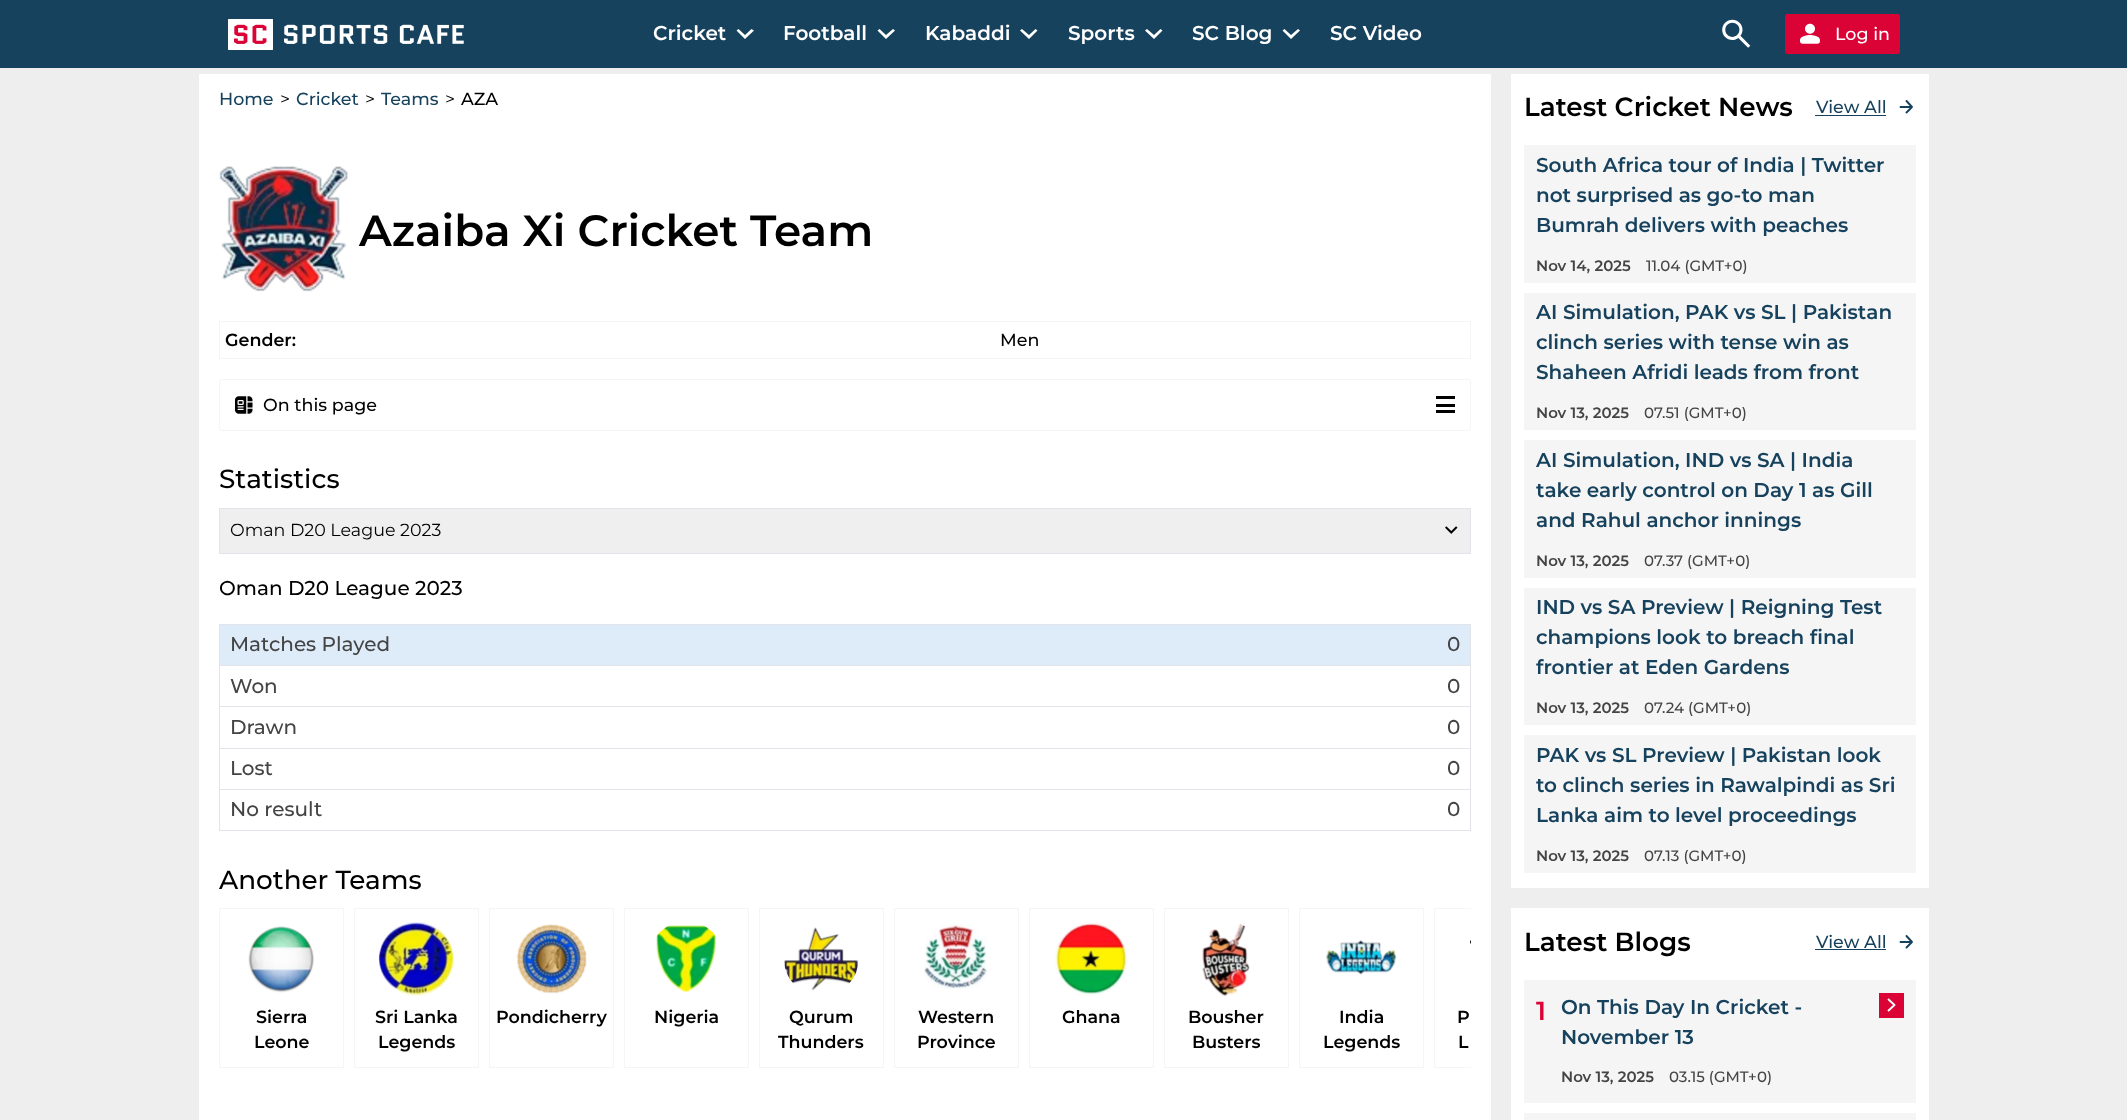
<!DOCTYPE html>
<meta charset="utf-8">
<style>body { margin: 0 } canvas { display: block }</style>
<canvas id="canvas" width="2127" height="1120"></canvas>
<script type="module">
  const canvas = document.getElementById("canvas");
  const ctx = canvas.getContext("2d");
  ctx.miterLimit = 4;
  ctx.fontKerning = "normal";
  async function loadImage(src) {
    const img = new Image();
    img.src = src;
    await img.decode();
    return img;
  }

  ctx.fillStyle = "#eeeeee";
  ctx.fillRect(0, 0, 2127, 1120);
  ctx.fillStyle = "#17425d";
  ctx.fillRect(0, 0, 2127, 68);
  ctx.drawImage(await loadImage("img1.png"), 228, 19, 236, 31);
  ctx.font = "600 20px Montserrat";
  ctx.fillStyle = "#ffffff";
  ctx.fillText("Cricket", 653, 40);
  ctx.beginPath();
  ctx.moveTo(738.5, 29);
  ctx.lineTo(745, 35);
  ctx.lineTo(751.5, 29);
  ctx.lineTo(754, 30.5);
  ctx.lineTo(745, 39);
  ctx.lineTo(736.5, 30.5);
  ctx.closePath();
  ctx.fill();
  ctx.fillText("Football", 783, 40);
  ctx.beginPath();
  ctx.moveTo(879.5, 29);
  ctx.lineTo(886, 35);
  ctx.lineTo(893, 29);
  ctx.lineTo(895, 30.5);
  ctx.lineTo(886, 39);
  ctx.lineTo(877.5, 30.5);
  ctx.closePath();
  ctx.fill();
  ctx.fillText("Kabaddi", 925, 40);
  ctx.beginPath();
  ctx.moveTo(1022, 29);
  ctx.lineTo(1029, 35);
  ctx.lineTo(1035.5, 29);
  ctx.lineTo(1037.5, 30.5);
  ctx.lineTo(1029, 39);
  ctx.lineTo(1020, 30.5);
  ctx.closePath();
  ctx.fill();
  ctx.fillText("Sports", 1068, 40);
  ctx.beginPath();
  ctx.moveTo(1147, 29);
  ctx.lineTo(1154, 35);
  ctx.lineTo(1160.5, 29);
  ctx.lineTo(1162.5, 30.5);
  ctx.lineTo(1154, 39);
  ctx.lineTo(1145, 30.5);
  ctx.closePath();
  ctx.fill();
  ctx.fillText("SC Blog", 1192, 40);
  ctx.beginPath();
  ctx.moveTo(1284.5, 29);
  ctx.lineTo(1291, 35);
  ctx.lineTo(1298, 29);
  ctx.lineTo(1300, 30.5);
  ctx.lineTo(1291, 39);
  ctx.lineTo(1282.5, 30.5);
  ctx.closePath();
  ctx.fill();
  ctx.fillText("SC Video", 1330, 40);
  ctx.drawImage(await loadImage("img2.png"), 1722, 19, 29, 29);
  ctx.fillStyle = "#db0235";
  ctx.beginPath();
  ctx.roundRect(1785, 14, 115, 40, 2.5);
  ctx.fill();
  ctx.drawImage(await loadImage("img3.png"), 1800, 23, 20, 21);
  ctx.font = "500 17.5px Montserrat";
  ctx.fillStyle = "#ffffff";
  ctx.fillText("Log in", 1835, 40);
  ctx.fillRect(199, 74, 1292, 1046);
  ctx.fillStyle = "#17425d";
  ctx.fillText("Home", 219, 105);
  ctx.font = "17.5px Montserrat";
  ctx.fillStyle = "#000000";
  ctx.fillText(">", 280, 105);
  ctx.font = "500 17.5px Montserrat";
  ctx.fillStyle = "#17425d";
  ctx.fillText("Cricket", 296, 105);
  ctx.font = "17.5px Montserrat";
  ctx.fillStyle = "#000000";
  ctx.fillText(">", 365, 105);
  ctx.font = "500 17.5px Montserrat";
  ctx.fillStyle = "#17425d";
  ctx.fillText("Teams", 381, 105);
  ctx.font = "17.5px Montserrat";
  ctx.fillStyle = "#000000";
  ctx.fillText(">", 445, 105);
  ctx.font = "500 17.5px Montserrat";
  ctx.fillText("AZA", 461, 105);
  ctx.drawImage(await loadImage("img4.png"), 219, 166, 129, 126);
  ctx.font = "600 43.75px Montserrat";
  ctx.fillText("Azaiba Xi Cricket Team", 359, 246);
  ctx.fillStyle = "#f5f5f5";
  ctx.fillRect(219, 321, 1252, 1);
  ctx.fillRect(1470, 321, 1, 38);
  ctx.fillRect(219, 358, 1252, 1);
  ctx.fillRect(219, 321, 1, 38);
  ctx.font = "600 17.5px Montserrat";
  ctx.fillStyle = "#000000";
  ctx.fillText("Gender:", 225, 346);
  ctx.font = "500 17.5px Montserrat";
  ctx.fillText("Men", 1000, 346);
  ctx.beginPath();
  ctx.roundRect(219.5, 379.5, 1251, 51, 2);
  ctx.strokeStyle = "#f5f5f5";
  ctx.stroke();
  ctx.drawImage(await loadImage("img5.png"), 235, 396, 18, 18);
  ctx.fillText("On this page", 263, 411);
  ctx.fillRect(1436, 396, 19, 3);
  ctx.fillRect(1436, 404, 19, 3);
  ctx.fillRect(1436, 410, 19, 3);
  ctx.font = "500 26.25px Montserrat";
  ctx.fillText("Statistics", 219, 488);
  ctx.fillStyle = "#efefef";
  ctx.fillRect(220, 509, 1250, 44);
  ctx.drawImage(await loadImage("img6.png"), 1445, 526, 13, 8);
  ctx.strokeStyle = "#e2e4e9";
  ctx.strokeRect(219.5, 508.5, 1251, 45);
  ctx.font = "17.5px Montserrat";
  ctx.fillStyle = "#000000";
  ctx.fillText("Oman D20 League 2023", 230, 536);
  ctx.font = "500 20px Montserrat";
  ctx.fillText("Oman D20 League 2023", 219, 595);
  ctx.fillStyle = "#e2e4e9";
  ctx.fillRect(219, 624, 1252, 1);
  ctx.fillRect(1470, 624, 1, 207);
  ctx.fillRect(219, 830, 1252, 1);
  ctx.fillRect(219, 624, 1, 207);
  ctx.fillStyle = "#deecfa";
  ctx.fillRect(220, 625, 1250, 40);
  ctx.fillStyle = "#444444";
  ctx.fillText("Matches Played", 230, 651);
  ctx.fillStyle = "#e2e4e9";
  ctx.fillRect(219, 665, 1252, 1);
  ctx.fillStyle = "#444444";
  ctx.fillText("0", 1447, 651);
  ctx.fillText("Won", 230, 693);
  ctx.fillStyle = "#e2e4e9";
  ctx.fillRect(219, 706, 1252, 1);
  ctx.fillStyle = "#444444";
  ctx.fillText("0", 1447, 693);
  ctx.fillText("Drawn", 230, 734);
  ctx.fillStyle = "#e2e4e9";
  ctx.fillRect(219, 748, 1252, 1);
  ctx.fillStyle = "#444444";
  ctx.fillText("0", 1447, 734);
  ctx.fillText("Lost", 230, 775);
  ctx.fillStyle = "#e2e4e9";
  ctx.fillRect(219, 789, 1252, 1);
  ctx.fillStyle = "#444444";
  ctx.fillText("0", 1447, 775);
  ctx.fillText("No result", 230, 816);
  ctx.fillText("0", 1447, 816);
  ctx.font = "500 26.25px Montserrat";
  ctx.fillStyle = "#000000";
  ctx.fillText("Another Teams", 219, 889);
  ctx.strokeStyle = "#f5f5f5";
  ctx.strokeRect(219.5, 908.5, 124, 159);
  ctx.drawImage(await loadImage("img7.png"), 248, 926, 66, 67);
  ctx.font = "600 17.5px Montserrat";
  ctx.fillText("Sierra", 256, 1023);
  ctx.fillText("Leone", 254, 1048);
  ctx.strokeRect(354.5, 908.5, 124, 159);
  ctx.drawImage(await loadImage("img8.png"), 378, 922, 76, 74);
  ctx.fillText("Sri Lanka", 375, 1023);
  ctx.fillText("Legends", 378, 1048);
  ctx.strokeRect(489.5, 908.5, 124, 159);
  ctx.drawImage(await loadImage("img9.png"), 516, 924, 71, 70);
  ctx.fillText("Pondicherry", 496, 1023);
  ctx.strokeRect(624.5, 908.5, 124, 159);
  ctx.drawImage(await loadImage("img10.png"), 656, 925, 60, 68);
  ctx.fillText("Nigeria", 654, 1023);
  ctx.strokeRect(759.5, 908.5, 124, 159);
  ctx.drawImage(await loadImage("img11.png"), 784, 927, 75, 64);
  ctx.fillText("Qurum", 789, 1023);
  ctx.fillText("Thunders", 778, 1048);
  ctx.strokeRect(894.5, 908.5, 124, 159);
  ctx.drawImage(await loadImage("img12.png"), 924, 922, 63, 67);
  ctx.fillText("Western", 918, 1023);
  ctx.fillText("Province", 917, 1048);
  ctx.strokeRect(1029.5, 908.5, 124, 159);
  ctx.drawImage(await loadImage("img13.png"), 1054, 922, 74, 74);
  ctx.fillText("Ghana", 1062, 1023);
  ctx.strokeRect(1164.5, 908.5, 124, 159);
  ctx.drawImage(await loadImage("img14.png"), 1202, 924, 48, 72);
  ctx.fillText("Bousher", 1188, 1023);
  ctx.fillText("Busters", 1192, 1048);
  ctx.strokeRect(1299.5, 908.5, 124, 159);
  ctx.drawImage(await loadImage("img15.png"), 1325, 940, 72, 35);
  ctx.fillText("India", 1339, 1023);
  ctx.fillText("Legends", 1323, 1048);
  ctx.save();
  ctx.beginPath();
  ctx.rect(219, 908, 1252, 166);
  ctx.clip();
  ctx.strokeRect(1434.5, 908.5, 124, 159);
  ctx.restore();
  ctx.drawImage(await loadImage("img16.png"), 1470, 940, 1, 4);
  ctx.fillText("P", 1457, 1023);
  ctx.fillText("L", 1458, 1048);
  ctx.fillStyle = "#ffffff";
  ctx.fillRect(1511, 74, 418, 814);
  ctx.font = "600 26.25px Montserrat";
  ctx.fillStyle = "#000000";
  ctx.fillText("Latest Cricket News", 1524, 116);
  ctx.font = "500 17.5px Montserrat";
  ctx.fillStyle = "#17425d";
  ctx.fillText("View All", 1816, 113);
  ctx.fillRect(1815, 115, 71, 1);
  ctx.beginPath();
  ctx.moveTo(1900.5, 107);
  ctx.lineTo(1912, 107);
  ctx.moveTo(1912, 107);
  ctx.lineTo(1906.5, 101);
  ctx.moveTo(1912, 107);
  ctx.lineTo(1906.5, 112.5);
  ctx.strokeStyle = "#17425d";
  ctx.lineWidth = 1.9;
  ctx.lineCap = "round";
  ctx.lineJoin = "round";
  ctx.stroke();
  ctx.fillStyle = "#f5f5f5";
  ctx.fillRect(1524, 145, 392, 138);
  ctx.font = "600 20px Montserrat";
  ctx.fillStyle = "#17425d";
  ctx.fillText("South Africa tour of India | Twitter", 1536, 172);
  ctx.fillText("not surprised as go-to man", 1536, 202);
  ctx.fillText("Bumrah delivers with peaches", 1536, 232);
  ctx.font = "600 15px Montserrat";
  ctx.fillStyle = "#444444";
  ctx.fillText("Nov 14, 2025", 1536, 271);
  ctx.font = "500 15px Montserrat";
  ctx.fillText("11.04 (GMT+0)", 1646, 271);
  ctx.fillStyle = "#f5f5f5";
  ctx.fillRect(1524, 293, 392, 137);
  ctx.font = "600 20px Montserrat";
  ctx.fillStyle = "#17425d";
  ctx.fillText("‌AI Simulation, PAK vs SL | Pakistan", 1536, 319);
  ctx.fillText("clinch series with tense win as", 1536, 349);
  ctx.fillText("Shaheen Afridi leads from front", 1536, 379);
  ctx.font = "600 15px Montserrat";
  ctx.fillStyle = "#444444";
  ctx.fillText("Nov 13, 2025", 1536, 418);
  ctx.font = "500 15px Montserrat";
  ctx.fillText("07.51 (GMT+0)", 1644, 418);
  ctx.fillStyle = "#f5f5f5";
  ctx.fillRect(1524, 440, 392, 138);
  ctx.font = "600 20px Montserrat";
  ctx.fillStyle = "#17425d";
  ctx.fillText("‌AI Simulation, IND vs SA | India", 1536, 467);
  ctx.fillText("take early control on Day 1 as Gill", 1536, 497);
  ctx.fillText("and Rahul anchor innings", 1536, 527);
  ctx.font = "600 15px Montserrat";
  ctx.fillStyle = "#444444";
  ctx.fillText("Nov 13, 2025", 1536, 566);
  ctx.font = "500 15px Montserrat";
  ctx.fillText("07.37 (GMT+0)", 1644, 566);
  ctx.fillStyle = "#f5f5f5";
  ctx.fillRect(1524, 588, 392, 137);
  ctx.font = "600 20px Montserrat";
  ctx.fillStyle = "#17425d";
  ctx.fillText("IND vs SA Preview | Reigning Test", 1536, 614);
  ctx.fillText("champions look to breach final", 1536, 644);
  ctx.fillText("frontier at Eden Gardens", 1536, 674);
  ctx.font = "600 15px Montserrat";
  ctx.fillStyle = "#444444";
  ctx.fillText("Nov 13, 2025", 1536, 713);
  ctx.font = "500 15px Montserrat";
  ctx.fillText("07.24 (GMT+0)", 1644, 713);
  ctx.fillStyle = "#f5f5f5";
  ctx.fillRect(1524, 735, 392, 138);
  ctx.font = "600 20px Montserrat";
  ctx.fillStyle = "#17425d";
  ctx.fillText("PAK vs SL Preview | Pakistan look", 1536, 762);
  ctx.fillText("to clinch series in Rawalpindi as Sri", 1536, 792);
  ctx.fillText("Lanka aim to level proceedings", 1536, 822);
  ctx.font = "600 15px Montserrat";
  ctx.fillStyle = "#444444";
  ctx.fillText("Nov 13, 2025", 1536, 861);
  ctx.font = "500 15px Montserrat";
  ctx.fillText("07.13 (GMT+0)", 1644, 861);
  ctx.fillStyle = "#ffffff";
  ctx.fillRect(1511, 908, 418, 212);
  ctx.font = "600 26.25px Montserrat";
  ctx.fillStyle = "#000000";
  ctx.fillText("Latest Blogs", 1524, 951);
  ctx.font = "500 17.5px Montserrat";
  ctx.fillStyle = "#17425d";
  ctx.fillText("View All", 1816, 948);
  ctx.fillRect(1815, 949, 71, 1);
  ctx.beginPath();
  ctx.moveTo(1900.5, 942);
  ctx.lineTo(1912, 942);
  ctx.moveTo(1912, 942);
  ctx.lineTo(1906.5, 936);
  ctx.moveTo(1912, 942);
  ctx.lineTo(1906.5, 947.5);
  ctx.stroke();
  ctx.fillStyle = "#f5f5f5";
  ctx.fillRect(1524, 980, 392, 123);
  ctx.font = "600 26.25px Montserrat";
  ctx.fillStyle = "#db0235";
  ctx.fillText("1", 1536, 1020);
  ctx.font = "600 20px Montserrat";
  ctx.fillStyle = "#17425d";
  ctx.fillText("On This Day In Cricket -", 1561, 1014);
  ctx.fillText("November 13", 1561, 1044);
  ctx.font = "600 15px Montserrat";
  ctx.fillStyle = "#444444";
  ctx.fillText("Nov 13, 2025", 1561, 1082);
  ctx.font = "500 15px Montserrat";
  ctx.fillText("03.15 (GMT+0)", 1669, 1082);
  ctx.fillStyle = "#db0235";
  ctx.fillRect(1879, 993, 25, 25);
  ctx.beginPath();
  ctx.moveTo(1888, 999);
  ctx.lineTo(1894.5, 1005);
  ctx.lineTo(1888, 1011);
  ctx.strokeStyle = "#ffffff";
  ctx.lineCap = "butt";
  ctx.stroke();
  ctx.fillStyle = "#f5f5f5";
  ctx.fillRect(1524, 1113, 392, 7);
</script>
